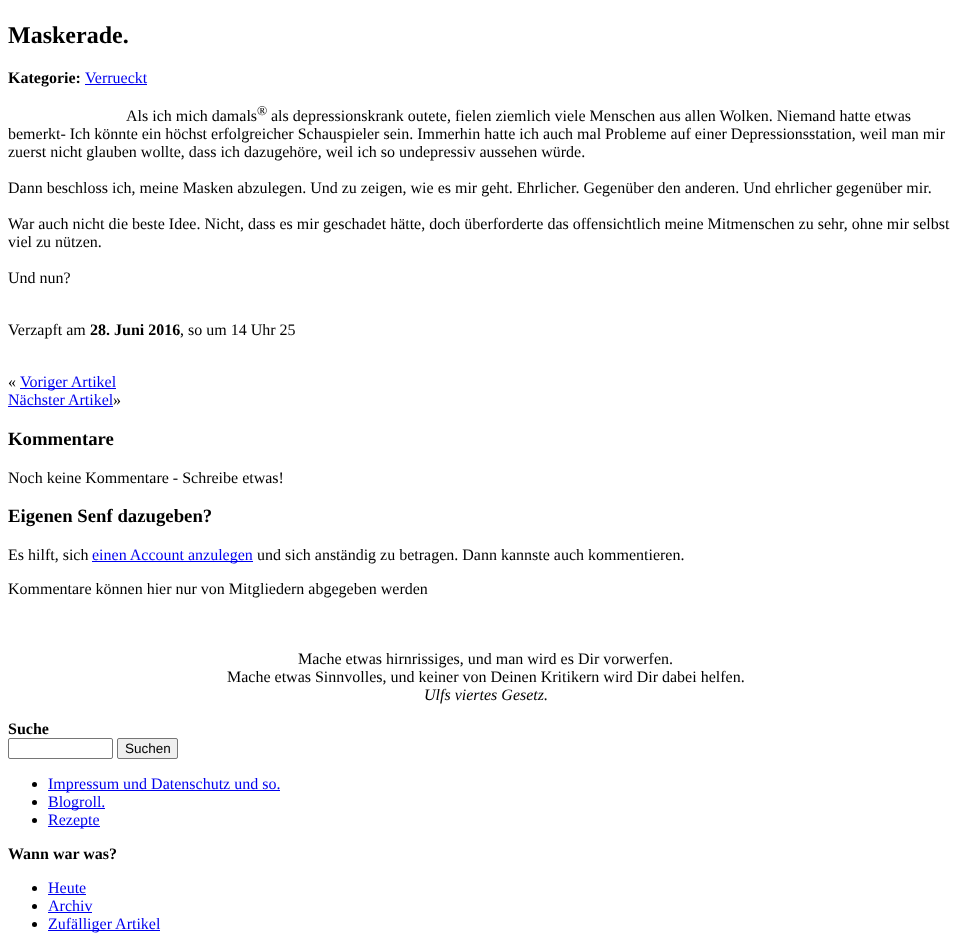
<!DOCTYPE html>
<meta charset="utf-8">
<style>body { margin: 0 } canvas { display: block }</style>
<canvas id="canvas" width="972" height="933"></canvas>
<script type="module">
  const canvas = document.getElementById("canvas");
  const ctx = canvas.getContext("2d");
  ctx.miterLimit = 4;
  ctx.fontKerning = "normal";

  ctx.fillStyle = "#ffffff";
  ctx.fillRect(0, 0, 972, 933);
  ctx.font = "bold 24px Liberation Serif";
  ctx.fillStyle = "#000000";
  ctx.fillText("Maskerade.", 8, 43);
  ctx.font = "bold 16px Liberation Serif";
  ctx.fillText("Kategorie:", 8, 83);
  ctx.font = "16px Liberation Serif";
  ctx.fillStyle = "#0000ee";
  ctx.fillText("Verrueckt", 85, 83);
  ctx.fillRect(85, 84, 62, 1);
  ctx.fillStyle = "#000000";
  ctx.fillText("Als ich mich damals", 126, 121);
  ctx.font = "13.5px Liberation Serif";
  ctx.fillText("®", 257, 115);
  ctx.font = "16px Liberation Serif";
  ctx.fillText("als depressionskrank outete, fielen ziemlich viele Menschen aus allen Wolken. Niemand hatte etwas", 271, 121);
  ctx.fillText("bemerkt- Ich könnte ein höchst erfolgreicher Schauspieler sein. Immerhin hatte ich auch mal Probleme auf einer Depressionsstation, weil man mir", 8, 139);
  ctx.fillText("zuerst nicht glauben wollte, dass ich dazugehöre, weil ich so undepressiv aussehen würde.", 8, 157);
  ctx.fillText("Dann beschloss ich, meine Masken abzulegen. Und zu zeigen, wie es mir geht. Ehrlicher. Gegenüber den anderen. Und ehrlicher gegenüber mir.", 8, 193);
  ctx.fillText("War auch nicht die beste Idee. Nicht, dass es mir geschadet hätte, doch überforderte das offensichtlich meine Mitmenschen zu sehr, ohne mir selbst", 8, 229);
  ctx.fillText("viel zu nützen.", 8, 247);
  ctx.fillText("Und nun?", 8, 283);
  ctx.fillText("Verzapft am", 8, 335);
  ctx.font = "bold 16px Liberation Serif";
  ctx.fillText("28. Juni 2016", 90, 335);
  ctx.font = "16px Liberation Serif";
  ctx.fillText(", so um 14 Uhr 25", 180, 335);
  ctx.fillText("«", 8, 387);
  ctx.fillStyle = "#0000ee";
  ctx.fillRect(20, 388, 96, 1);
  ctx.fillText("Voriger Artikel", 20, 387);
  ctx.fillText("Nächster Artikel", 8, 405);
  ctx.fillRect(8, 406, 105, 1);
  ctx.fillStyle = "#000000";
  ctx.fillText("»", 113, 405);
  ctx.font = "bold 18.75px Liberation Serif";
  ctx.fillText("Kommentare", 8, 445);
  ctx.font = "16px Liberation Serif";
  ctx.fillText("Noch keine Kommentare - Schreibe etwas!", 8, 483);
  ctx.font = "bold 18.75px Liberation Serif";
  ctx.fillText("Eigenen Senf dazugeben?", 8, 522);
  ctx.font = "16px Liberation Serif";
  ctx.fillText("Es hilft, sich", 8, 560);
  ctx.fillStyle = "#0000ee";
  ctx.fillRect(92, 561, 161, 1);
  ctx.fillText("einen Account anzulegen", 92, 560);
  ctx.fillStyle = "#000000";
  ctx.fillText("und sich anständig zu betragen. Dann kannste auch kommentieren.", 257, 560);
  ctx.fillText("Kommentare können hier nur von Mitgliedern abgegeben werden", 8, 594);
  ctx.fillText("Mache etwas hirnrissiges, und man wird es Dir vorwerfen.", 298, 664);
  ctx.fillText("Mache etwas Sinnvolles, und keiner von Deinen Kritikern wird Dir dabei helfen.", 227, 682);
  ctx.font = "italic 16px Liberation Serif";
  ctx.fillText("Ulfs viertes Gesetz.", 424, 700);
  ctx.font = "bold 16px Liberation Serif";
  ctx.fillText("Suche", 8, 734);
  ctx.beginPath();
  ctx.roundRect(8.5, 738.5, 104, 20, 1.5);
  ctx.strokeStyle = "#767676";
  ctx.stroke();
  ctx.fillStyle = "#efefef";
  ctx.beginPath();
  ctx.roundRect(117.5, 738.5, 60, 20, 1.5);
  ctx.fill();
  ctx.stroke();
  ctx.font = "13.5px Liberation Sans";
  ctx.fillStyle = "#000000";
  ctx.fillText("Suchen", 125, 753);
  ctx.beginPath();
  ctx.arc(34.5, 784.5, 2.5, 0, Math.PI * 2);
  ctx.fill();
  ctx.fillStyle = "#0000ee";
  ctx.fillRect(48, 790, 232, 1);
  ctx.font = "16px Liberation Serif";
  ctx.fillText("Impressum und Datenschutz und so.", 48, 789);
  ctx.fillStyle = "#000000";
  ctx.beginPath();
  ctx.arc(34.5, 802.5, 2.5, 0, Math.PI * 2);
  ctx.fill();
  ctx.fillStyle = "#0000ee";
  ctx.fillRect(48, 808, 57, 1);
  ctx.fillText("Blogroll.", 48, 807);
  ctx.fillStyle = "#000000";
  ctx.beginPath();
  ctx.arc(34.5, 820.5, 2.5, 0, Math.PI * 2);
  ctx.fill();
  ctx.fillStyle = "#0000ee";
  ctx.fillRect(48, 826, 52, 1);
  ctx.fillText("Rezepte", 48, 825);
  ctx.font = "bold 16px Liberation Serif";
  ctx.fillStyle = "#000000";
  ctx.fillText("Wann war was?", 8, 859);
  ctx.beginPath();
  ctx.arc(34.5, 888.5, 2.5, 0, Math.PI * 2);
  ctx.fill();
  ctx.font = "16px Liberation Serif";
  ctx.fillStyle = "#0000ee";
  ctx.fillText("Heute", 48, 893);
  ctx.fillRect(48, 894, 38, 1);
  ctx.fillStyle = "#000000";
  ctx.beginPath();
  ctx.arc(34.5, 906.5, 2.5, 0, Math.PI * 2);
  ctx.fill();
  ctx.fillStyle = "#0000ee";
  ctx.fillText("Archiv", 48, 911);
  ctx.fillRect(48, 912, 44, 1);
  ctx.fillStyle = "#000000";
  ctx.beginPath();
  ctx.arc(34.5, 924.5, 2.5, 0, Math.PI * 2);
  ctx.fill();
  ctx.fillStyle = "#0000ee";
  ctx.fillRect(48, 930, 112, 1);
  ctx.fillText("Zufälliger Artikel", 48, 929);
</script>
